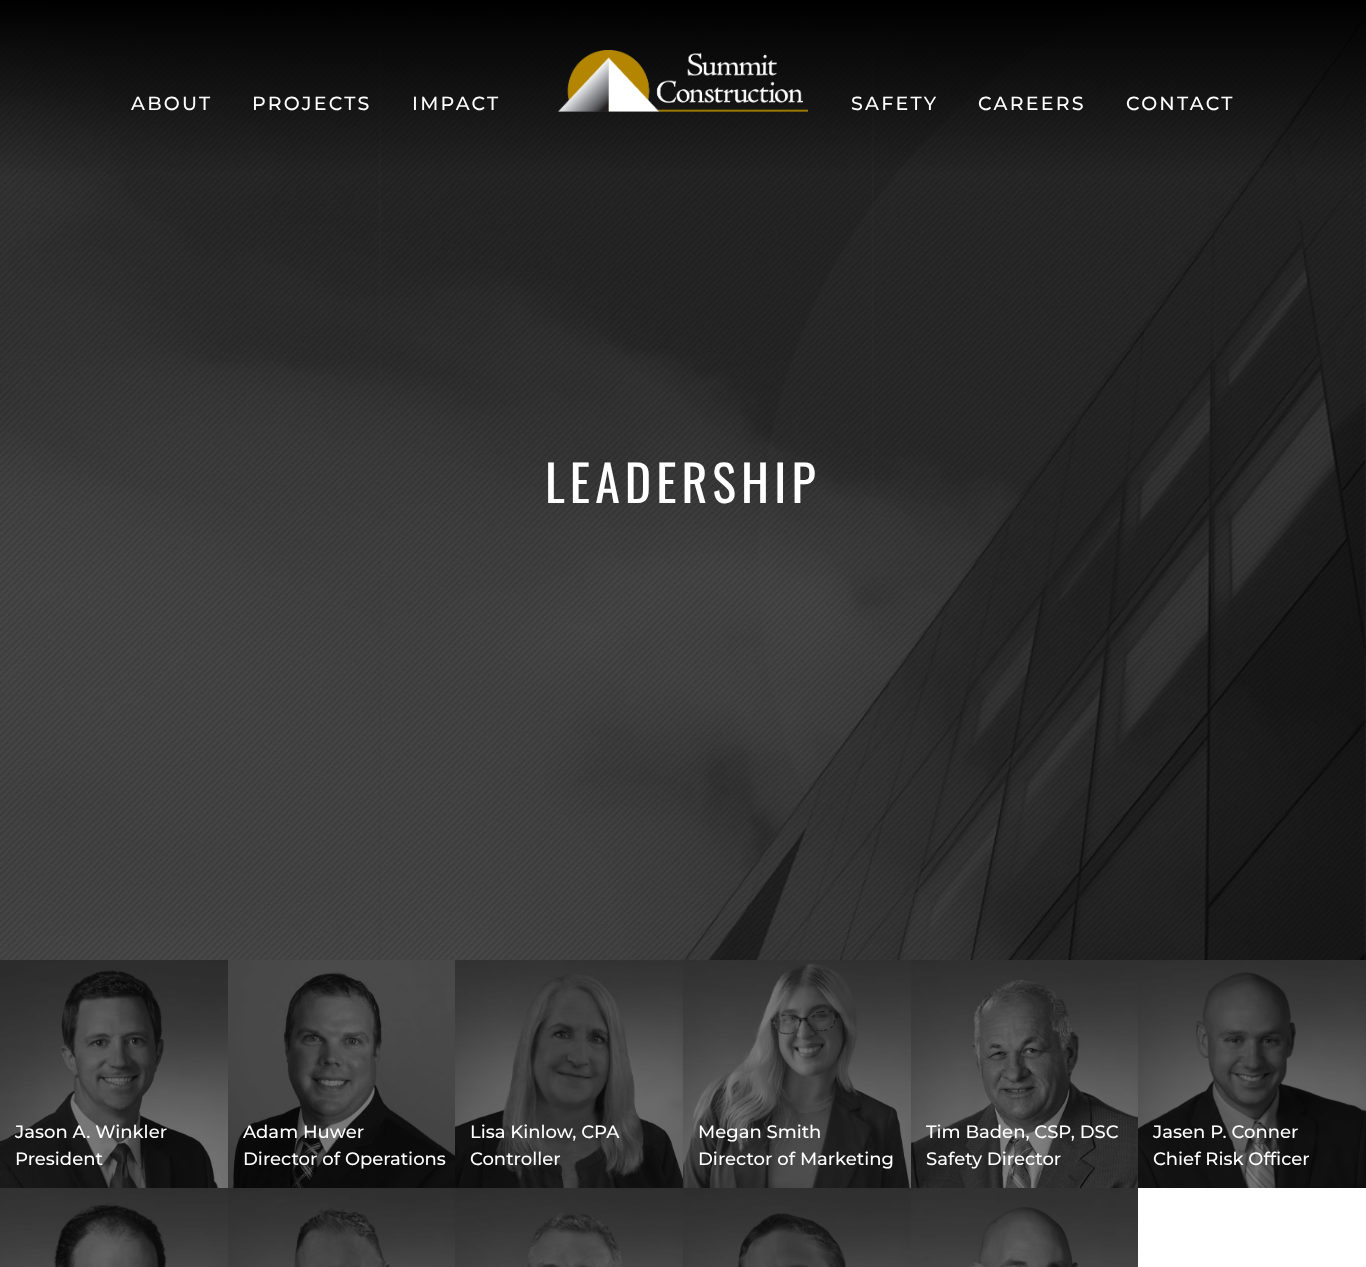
<!DOCTYPE html>
<meta charset="utf-8">
<style>body { margin: 0 } canvas { display: block }</style>
<canvas id="canvas" width="1366" height="1267"></canvas>
<script type="module">
  const canvas = document.getElementById("canvas");
  const ctx = canvas.getContext("2d");
  ctx.miterLimit = 4;
  ctx.fontKerning = "normal";
  async function loadImage(src) {
    const img = new Image();
    img.src = src;
    await img.decode();
    return img;
  }

  ctx.fillStyle = "#ffffff";
  ctx.fillRect(0, 0, 1366, 1267);
  ctx.drawImage(await loadImage("img2.png"), 0, 0, 1366, 960);
  ctx.drawImage(await loadImage("img1.png"), 558, 50, 250, 62);
  ctx.letterSpacing = "2.25px";
  ctx.font = "500 19px Montserrat";
  ctx.fillText("ABOUT", 131, 110);
  ctx.fillText("PROJECTS", 252, 110);
  ctx.fillText("IMPACT", 412, 110);
  ctx.fillText("SAFETY", 851, 110);
  ctx.fillText("CAREERS", 978, 110);
  ctx.fillText("CONTACT", 1126, 110);
  ctx.letterSpacing = "5px";
  ctx.font = "50px Oswald";
  ctx.fillText("LEADERSHIP", 545, 503);
  ctx.drawImage(await loadImage("img3.png"), 0, 960, 228, 228);
  ctx.letterSpacing = "0px";
  ctx.font = "500 18px Montserrat";
  ctx.fillText("Jason A. Winkler", 15, 1138);
  ctx.fillText("President", 15, 1165);
  ctx.drawImage(await loadImage("img4.png"), 228, 960, 227, 228);
  ctx.fillText("Adam Huwer", 243, 1138);
  ctx.fillText("Director of Operations", 243, 1165);
  ctx.drawImage(await loadImage("img5.png"), 455, 960, 228, 228);
  ctx.fillText("Lisa Kinlow, CPA", 470, 1138);
  ctx.fillText("Controller", 470, 1165);
  ctx.drawImage(await loadImage("img6.png"), 683, 960, 228, 228);
  ctx.fillText("Megan Smith", 698, 1138);
  ctx.fillText("Director of Marketing", 698, 1165);
  ctx.drawImage(await loadImage("img7.png"), 911, 960, 227, 228);
  ctx.fillText("Tim Baden, CSP, DSC", 926, 1138);
  ctx.fillText("Safety Director", 926, 1165);
  ctx.drawImage(await loadImage("img8.png"), 1138, 960, 228, 228);
  ctx.fillText("Jasen P. Conner", 1153, 1138);
  ctx.fillText("Chief Risk Officer", 1153, 1165);
  ctx.drawImage(await loadImage("img9.png"), 0, 1188, 228, 79);
  ctx.drawImage(await loadImage("img10.png"), 228, 1188, 227, 79);
  ctx.drawImage(await loadImage("img11.png"), 455, 1188, 228, 79);
  ctx.drawImage(await loadImage("img12.png"), 683, 1188, 228, 79);
  ctx.drawImage(await loadImage("img13.png"), 911, 1188, 227, 79);
</script>
